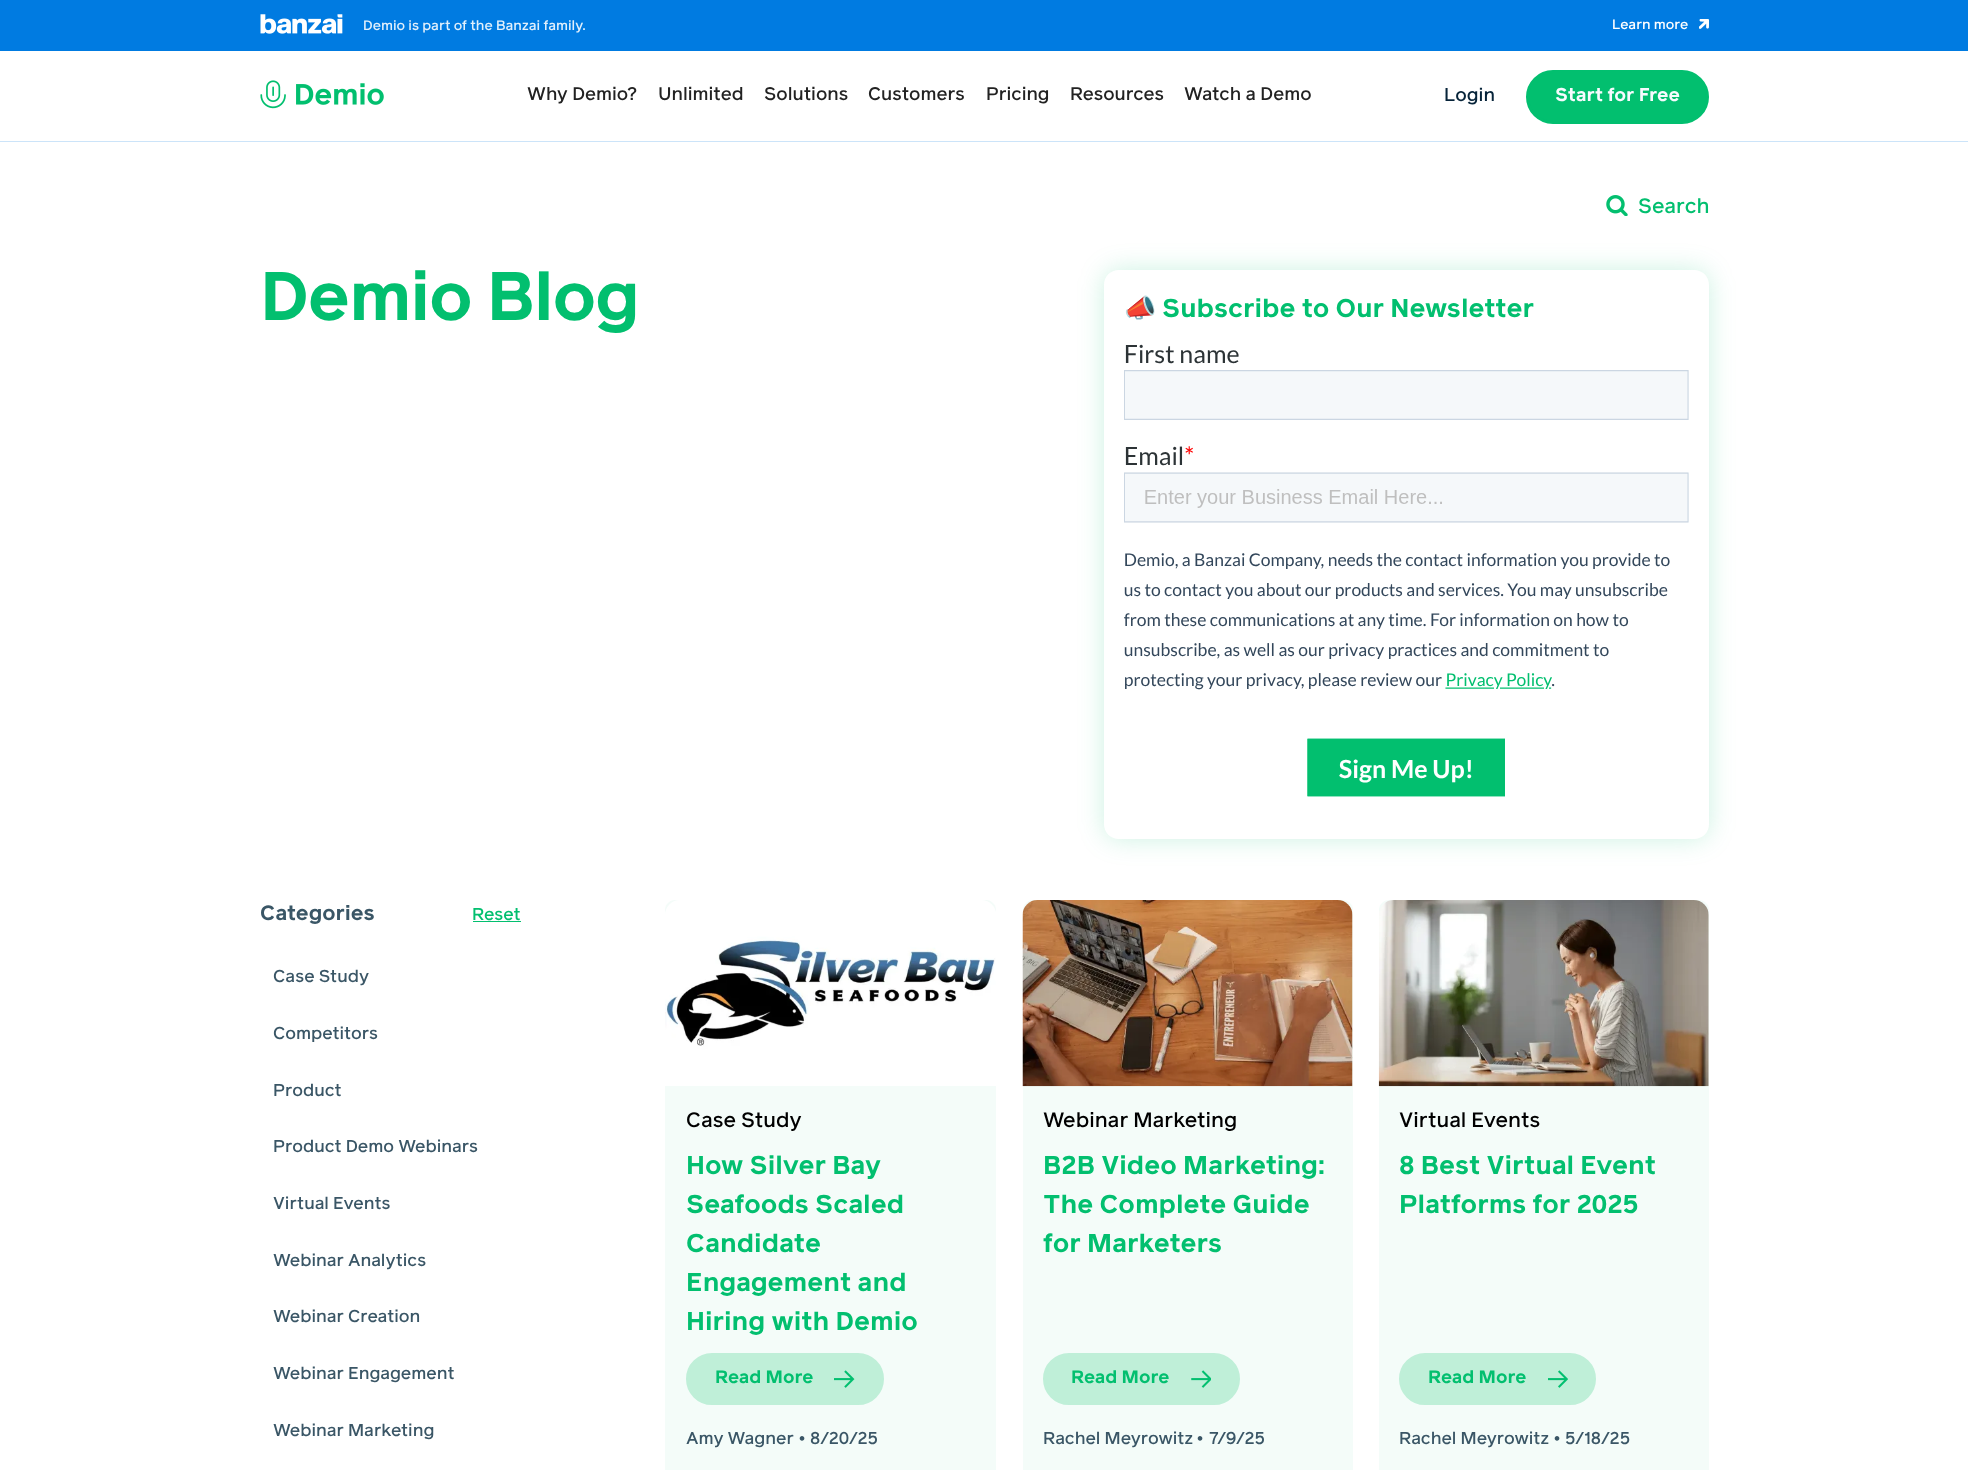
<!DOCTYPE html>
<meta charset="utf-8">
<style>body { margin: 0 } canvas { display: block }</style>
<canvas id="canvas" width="1968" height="1470"></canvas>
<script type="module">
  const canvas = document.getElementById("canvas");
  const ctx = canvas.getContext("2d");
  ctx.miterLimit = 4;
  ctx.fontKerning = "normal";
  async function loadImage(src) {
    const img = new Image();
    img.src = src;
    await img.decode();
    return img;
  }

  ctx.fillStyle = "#ffffff";
  ctx.fillRect(0, 0, 1968, 1470);
  ctx.fillStyle = "#007be1";
  ctx.fillRect(0, 0, 1968, 51);
  ctx.drawImage(await loadImage("img1.png"), 260, 14, 83, 20);
  ctx.font = "500 13.7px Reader";
  ctx.fillStyle = "#e2f0fc";
  ctx.fillText("Demio is part of the Banzai family.", 363, 30);
  ctx.fillStyle = "#ffffff";
  ctx.fillText("Learn more", 1612, 29);
  ctx.drawImage(await loadImage("img2.png"), 1699, 19, 10, 10);
  ctx.fillStyle = "#cce4f9";
  ctx.fillRect(0, 141, 1968, 1);
  ctx.drawImage(await loadImage("img3.png"), 260, 80, 124, 29);
  ctx.font = "500 18.25px Reader";
  ctx.fillStyle = "#222222";
  ctx.fillText("Why Demio?", 527, 100);
  ctx.fillText("Unlimited", 658, 100);
  ctx.fillText("Solutions", 764, 100);
  ctx.fillText("Customers", 868, 100);
  ctx.fillText("Pricing", 986, 100);
  ctx.fillText("Resources", 1070, 100);
  ctx.fillText("Watch a Demo", 1184, 100);
  ctx.font = "500 18.5px Reader";
  ctx.fillStyle = "#07243a";
  ctx.fillText("Login", 1444, 101);
  ctx.fillStyle = "#02bf6f";
  ctx.beginPath();
  ctx.roundRect(1527.5, 71.5, 180, 51, 25.5);
  ctx.fill();
  ctx.strokeStyle = "#02bf6f";
  ctx.lineWidth = 3;
  ctx.stroke();
  ctx.font = "bold 18.5px Reader";
  ctx.fillStyle = "#f7fbfe";
  ctx.fillText("Start for Free", 1555, 101);
  ctx.drawImage(await loadImage("img4.png"), 1606, 195, 22, 21);
  ctx.font = "500 20.75px Reader";
  ctx.fillStyle = "#02bf6f";
  ctx.fillText("Search", 1638, 213);
  ctx.letterSpacing = "-1.25px";
  ctx.font = "bold 68.5px Reader";
  ctx.fillText("Demio Blog", 260, 320);
  ctx.save();
  ctx.beginPath();
  ctx.moveTo(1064, 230);
  ctx.lineTo(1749, 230);
  ctx.lineTo(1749, 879);
  ctx.lineTo(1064, 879);
  ctx.closePath();
  ctx.moveTo(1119, 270);
  ctx.lineTo(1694, 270);
  ctx.bezierCurveTo(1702.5, 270, 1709, 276.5, 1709, 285);
  ctx.lineTo(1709, 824);
  ctx.bezierCurveTo(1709, 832.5, 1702.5, 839, 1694, 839);
  ctx.lineTo(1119, 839);
  ctx.bezierCurveTo(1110.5, 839, 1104, 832.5, 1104, 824);
  ctx.lineTo(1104, 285);
  ctx.bezierCurveTo(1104, 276.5, 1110.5, 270, 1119, 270);
  ctx.closePath();
  ctx.clip("evenodd");
  ctx.fillStyle = "rgba(3, 191, 111, 0.2)";
  ctx.filter = "blur(13px)";
  ctx.beginPath();
  ctx.roundRect(1104, 270, 605, 569, 15);
  ctx.fill();
  ctx.filter = "none";
  ctx.restore();
  ctx.letterSpacing = "0px";
  ctx.font = "bold 25.9px Noto Color Emoji";
  ctx.fillText("📣", 1124, 317);
  ctx.font = "bold 25.9px Reader";
  ctx.fillText("Subscribe to Our Newsletter", 1162, 317);
  ctx.drawImage(await loadImage("img5.png"), 1124, 344, 565, 453);
  ctx.font = "bold 20.75px Reader";
  ctx.fillStyle = "#3a5666";
  ctx.fillText("Categories", 260, 920);
  ctx.font = "500 17.25px Reader";
  ctx.fillStyle = "#02bf6f";
  ctx.fillText("Reset", 472, 920);
  ctx.fillRect(473, 921, 48, 1);
  ctx.fillStyle = "#3a5666";
  ctx.fillText("Case Study", 273, 982);
  ctx.fillText("Competitors", 273, 1039);
  ctx.fillText("Product", 273, 1096);
  ctx.fillText("Product Demo Webinars", 273, 1152);
  ctx.fillText("Virtual Events", 273, 1209);
  ctx.fillText("Webinar Analytics", 273, 1266);
  ctx.fillText("Webinar Creation", 273, 1322);
  ctx.fillText("Webinar Engagement", 273, 1379);
  ctx.fillText("Webinar Marketing", 273, 1436);
  ctx.fillStyle = "#f4fcf9";
  ctx.beginPath();
  ctx.moveTo(675, 900);
  ctx.lineTo(986, 900);
  ctx.bezierCurveTo(991.5, 900, 996, 904.5, 996, 910);
  ctx.lineTo(996, 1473);
  ctx.lineTo(665, 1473);
  ctx.lineTo(665, 910);
  ctx.bezierCurveTo(665, 904.5, 669.5, 900, 675, 900);
  ctx.closePath();
  ctx.fill();
  ctx.drawImage(await loadImage("img6.png"), 665, 900, 331, 186);
  ctx.font = "500 20.75px Reader";
  ctx.fillStyle = "#000000";
  ctx.fillText("Case Study", 686, 1127);
  ctx.font = "bold 25.9px Reader";
  ctx.fillStyle = "#02bf6f";
  ctx.fillText("How Silver Bay", 686, 1174);
  ctx.fillText("Seafoods Scaled", 686, 1213);
  ctx.fillText("Candidate", 686, 1252);
  ctx.fillText("Engagement and", 686, 1291);
  ctx.fillText("Hiring with Demio", 686, 1330);
  ctx.fillStyle = "#bfefd8";
  ctx.beginPath();
  ctx.roundRect(687.5, 1354.5, 195, 49, 24.5);
  ctx.fill();
  ctx.strokeStyle = "#bfefd8";
  ctx.stroke();
  ctx.font = "bold 18px Reader";
  ctx.fillStyle = "#02bf6f";
  ctx.fillText("Read More", 715, 1383);
  ctx.drawImage(await loadImage("img7.png"), 834, 1370, 21, 18);
  ctx.font = "500 17.25px Reader";
  ctx.fillStyle = "#3a5666";
  ctx.fillText("Amy Wagner", 686, 1444);
  ctx.font = "17.25px Liberation Sans";
  ctx.fillText("•", 799, 1444);
  ctx.font = "500 17.25px Reader";
  ctx.fillText("8/20/25", 810, 1444);
  ctx.fillStyle = "#f4fcf9";
  ctx.beginPath();
  ctx.moveTo(1033, 900);
  ctx.lineTo(1343, 900);
  ctx.bezierCurveTo(1348.5, 900, 1353, 904.5, 1353, 910);
  ctx.lineTo(1353, 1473);
  ctx.lineTo(1023, 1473);
  ctx.lineTo(1023, 910);
  ctx.bezierCurveTo(1023, 904.5, 1027.5, 900, 1033, 900);
  ctx.closePath();
  ctx.fill();
  ctx.drawImage(await loadImage("img8.png"), 1022, 900, 331, 187);
  ctx.font = "500 20.75px Reader";
  ctx.fillStyle = "#000000";
  ctx.fillText("Webinar Marketing", 1043, 1127);
  ctx.font = "bold 25.9px Reader";
  ctx.fillStyle = "#02bf6f";
  ctx.fillText("B2B Video Marketing:", 1043, 1174);
  ctx.fillText("The Complete Guide", 1043, 1213);
  ctx.fillText("for Marketers", 1043, 1252);
  ctx.fillStyle = "#bfefd8";
  ctx.beginPath();
  ctx.roundRect(1044.5, 1354.5, 194, 49, 24.5);
  ctx.fill();
  ctx.stroke();
  ctx.font = "bold 18px Reader";
  ctx.fillStyle = "#02bf6f";
  ctx.fillText("Read More", 1071, 1383);
  ctx.drawImage(await loadImage("img9.png"), 1191, 1370, 20, 18);
  ctx.font = "500 17.25px Reader";
  ctx.fillStyle = "#3a5666";
  ctx.fillText("Rachel Meyrowitz", 1043, 1444);
  ctx.font = "17.25px Liberation Sans";
  ctx.fillText("•", 1197, 1444);
  ctx.font = "500 17.25px Reader";
  ctx.fillText("7/9/25", 1209, 1444);
  ctx.fillStyle = "#f4fcf9";
  ctx.beginPath();
  ctx.moveTo(1389, 900);
  ctx.lineTo(1699, 900);
  ctx.bezierCurveTo(1704.5, 900, 1709, 904.5, 1709, 910);
  ctx.lineTo(1709, 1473);
  ctx.lineTo(1379, 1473);
  ctx.lineTo(1379, 910);
  ctx.bezierCurveTo(1379, 904.5, 1383.5, 900, 1389, 900);
  ctx.closePath();
  ctx.fill();
  ctx.drawImage(await loadImage("img10.png"), 1378, 900, 331, 187);
  ctx.font = "500 20.75px Reader";
  ctx.fillStyle = "#000000";
  ctx.fillText("Virtual Events", 1399, 1127);
  ctx.font = "bold 25.9px Reader";
  ctx.fillStyle = "#02bf6f";
  ctx.fillText("8 Best Virtual Event", 1399, 1174);
  ctx.fillText("Platforms for 2025", 1399, 1213);
  ctx.fillStyle = "#bfefd8";
  ctx.beginPath();
  ctx.roundRect(1400.5, 1354.5, 194, 49, 24.5);
  ctx.fill();
  ctx.stroke();
  ctx.font = "bold 18px Reader";
  ctx.fillStyle = "#02bf6f";
  ctx.fillText("Read More", 1428, 1383);
  ctx.drawImage(await loadImage("img11.png"), 1548, 1370, 20, 18);
  ctx.font = "500 17.25px Reader";
  ctx.fillStyle = "#3a5666";
  ctx.fillText("Rachel Meyrowitz", 1399, 1444);
  ctx.font = "17.25px Liberation Sans";
  ctx.fillText("•", 1554, 1444);
  ctx.font = "500 17.25px Reader";
  ctx.fillText("5/18/25", 1565, 1444);
</script>
